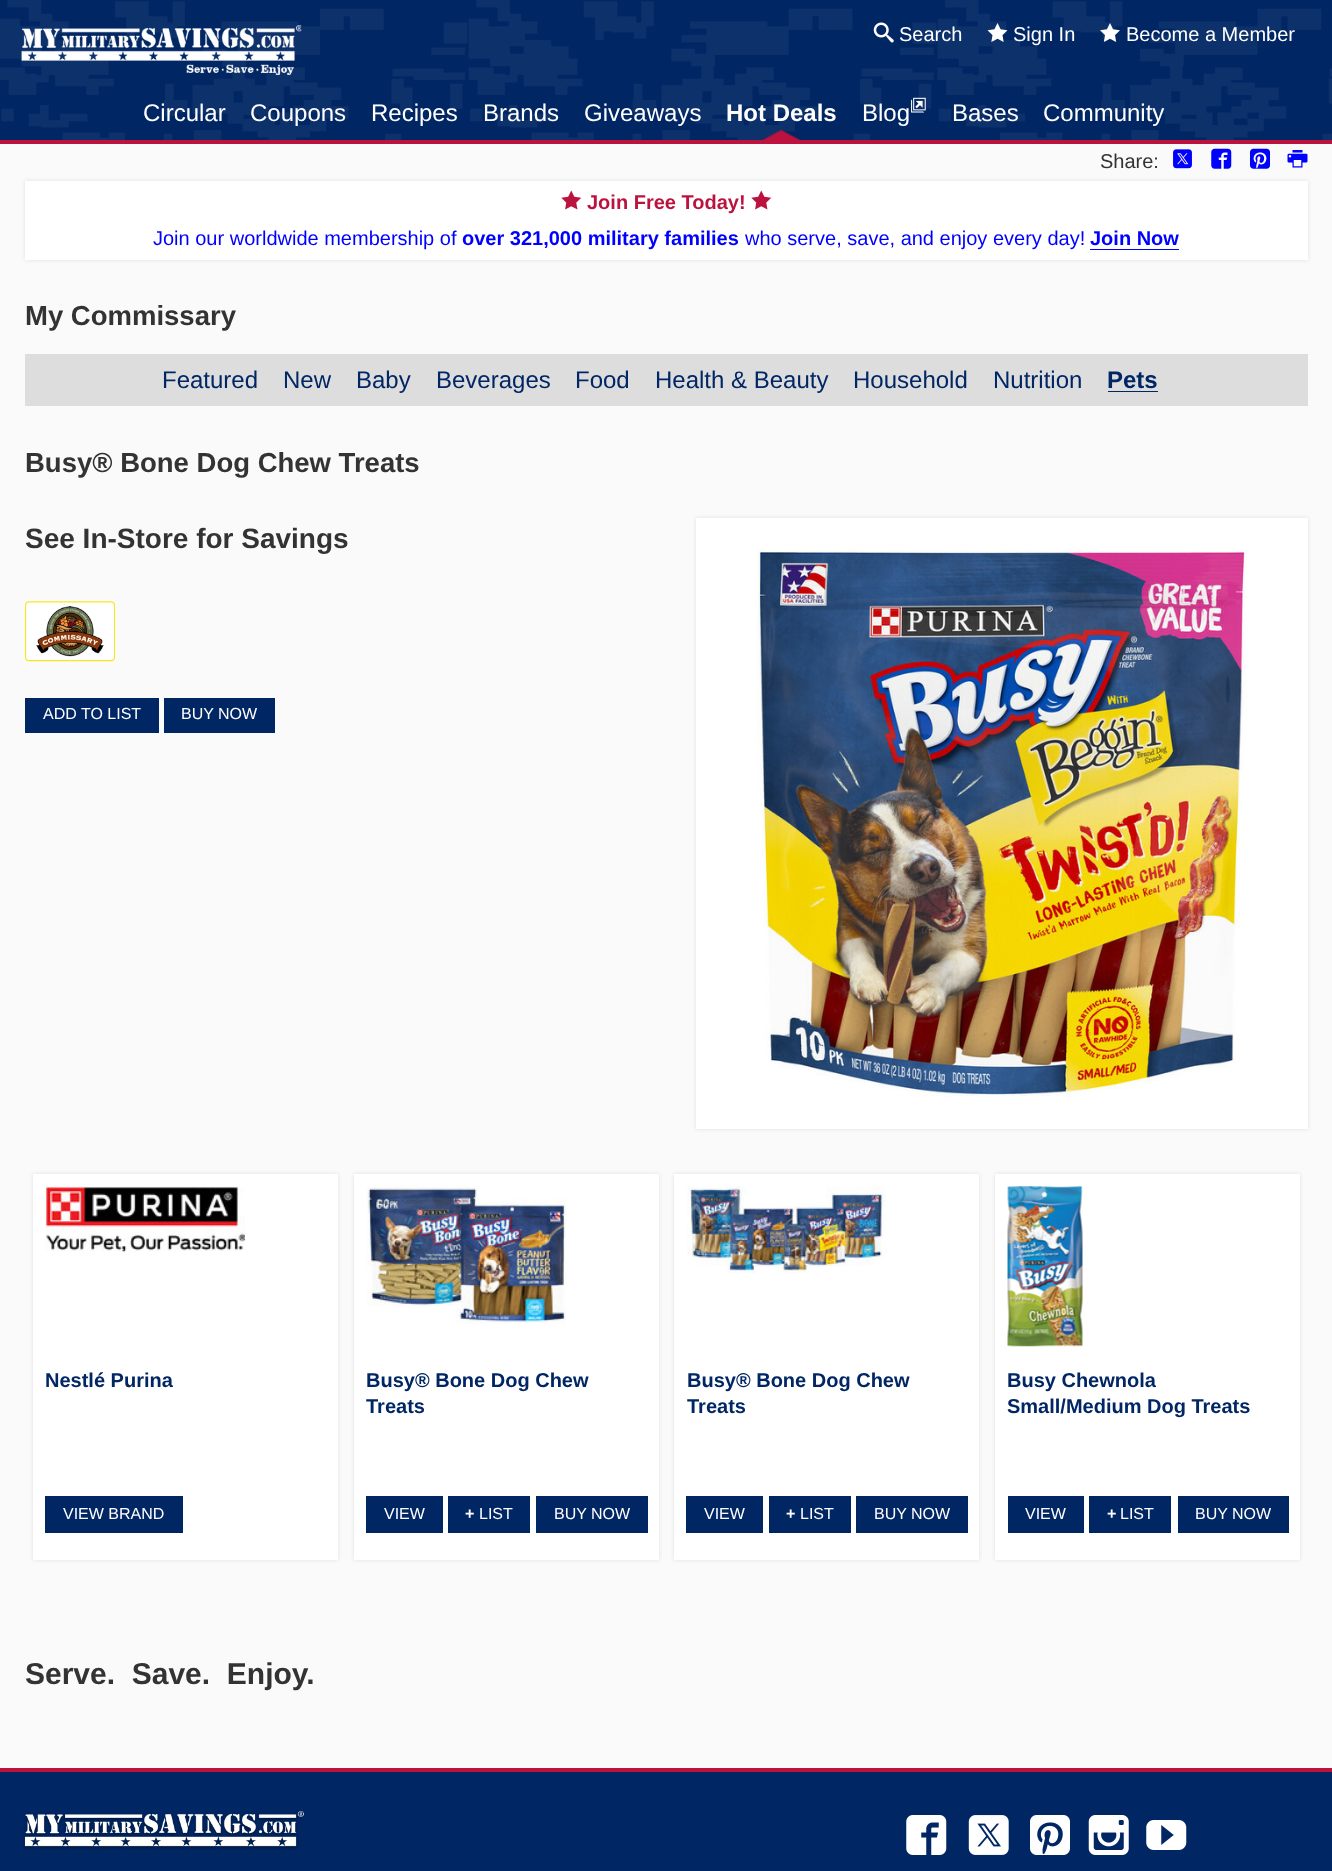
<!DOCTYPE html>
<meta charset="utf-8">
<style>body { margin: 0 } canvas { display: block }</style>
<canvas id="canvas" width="1332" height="1871"></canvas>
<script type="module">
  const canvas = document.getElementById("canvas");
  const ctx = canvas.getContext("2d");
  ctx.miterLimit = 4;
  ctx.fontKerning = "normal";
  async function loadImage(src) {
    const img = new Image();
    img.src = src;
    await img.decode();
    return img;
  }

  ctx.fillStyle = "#fafafa";
  ctx.fillRect(0, 0, 1332, 1871);
  ctx.fillStyle = "#002664";
  ctx.fillRect(0, 0, 1332, 140);
  ctx.drawImage(await loadImage("img1.png"), 0, 0, 1332, 140);
  ctx.fillStyle = "#bb133e";
  ctx.fillRect(0, 140, 1332, 4);
  ctx.drawImage(await loadImage("img2.png"), 21, 25, 281, 50);
  ctx.drawImage(await loadImage("img3.png"), 873, 22, 21, 21);
  ctx.font = "20px Liberation Sans";
  ctx.fillStyle = "#ffffff";
  ctx.fillText("Search", 899, 41);
  ctx.drawImage(await loadImage("img4.png"), 987, 23, 21, 19);
  ctx.fillText("Sign In", 1013, 41);
  ctx.drawImage(await loadImage("img5.png"), 1100, 23, 20, 19);
  ctx.fillText("Become a Member", 1126, 41);
  ctx.font = "24px Liberation Sans";
  ctx.fillText("Circular", 143, 121);
  ctx.fillText("Coupons", 250, 121);
  ctx.fillText("Recipes", 371, 121);
  ctx.fillText("Brands", 483, 121);
  ctx.fillText("Giveaways", 584, 121);
  ctx.drawImage(await loadImage("img6.png"), 762, 130, 38, 10);
  ctx.font = "bold 24px Liberation Sans";
  ctx.fillText("Hot Deals", 726, 121);
  ctx.font = "24px Liberation Sans";
  ctx.fillText("Blog", 862, 121);
  ctx.drawImage(await loadImage("img7.png"), 911, 97, 15, 16);
  ctx.fillText("Bases", 952, 121);
  ctx.fillText("Community", 1043, 121);
  ctx.font = "20px Liberation Sans";
  ctx.fillStyle = "#333333";
  ctx.fillText("Share:", 1100, 168);
  ctx.drawImage(await loadImage("img8.png"), 1173, 149, 19, 20);
  ctx.drawImage(await loadImage("img9.png"), 1211, 148, 21, 21);
  ctx.drawImage(await loadImage("img10.png"), 1250, 148, 20, 21);
  ctx.drawImage(await loadImage("img11.png"), 1287, 150, 21, 18);
  ctx.fillStyle = "rgba(0, 0, 0, 0.1)";
  ctx.filter = "blur(2px)";
  ctx.beginPath();
  ctx.rect(25, 181, 1283, 79);
  ctx.fill();
  ctx.filter = "none";
  ctx.fillStyle = "#ffffff";
  ctx.fillRect(25, 181, 1283, 79);
  ctx.drawImage(await loadImage("img12.png"), 561, 190, 21, 20);
  ctx.font = "bold 20px Liberation Sans";
  ctx.fillStyle = "#bb133e";
  ctx.fillText("Join Free Today!", 587, 209);
  ctx.drawImage(await loadImage("img12.png"), 751, 190, 21, 20);
  ctx.font = "20px Liberation Sans";
  ctx.fillStyle = "#0000ff";
  ctx.fillText("Join our worldwide membership of", 153, 245);
  ctx.font = "bold 20px Liberation Sans";
  ctx.fillText("over 321,000 military families", 462, 245);
  ctx.font = "20px Liberation Sans";
  ctx.fillText("who serve, save, and enjoy every day!", 745, 245);
  ctx.font = "bold 20px Liberation Sans";
  ctx.fillText("Join Now", 1090, 245);
  ctx.fillRect(1090, 249, 89, 1);
  ctx.font = "bold 27.5px Liberation Sans";
  ctx.fillStyle = "#333333";
  ctx.fillText("My Commissary", 25, 325);
  ctx.fillStyle = "#dddddd";
  ctx.fillRect(25, 354, 1283, 52);
  ctx.font = "24px Liberation Sans";
  ctx.fillStyle = "#002664";
  ctx.fillText("Featured", 162, 388);
  ctx.fillText("New", 283, 388);
  ctx.fillText("Baby", 356, 388);
  ctx.fillText("Beverages", 436, 388);
  ctx.fillText("Food", 575, 388);
  ctx.fillText("Health & Beauty", 655, 388);
  ctx.fillText("Household", 853, 388);
  ctx.fillText("Nutrition", 993, 388);
  ctx.font = "bold 24px Liberation Sans";
  ctx.fillText("Pets", 1107, 388);
  ctx.fillRect(1108, 391, 50, 1);
  ctx.font = "bold 27.5px Liberation Sans";
  ctx.fillStyle = "#333333";
  ctx.fillText("Busy® Bone Dog Chew Treats", 25, 472);
  ctx.font = "bold 28px Liberation Sans";
  ctx.fillText("See In-Store for Savings", 25, 548);
  ctx.drawImage(await loadImage("img13.png"), 25, 601, 90, 61);
  ctx.fillStyle = "#002664";
  ctx.fillRect(25, 698, 134, 35);
  ctx.font = "16px Liberation Sans";
  ctx.fillStyle = "#ffffff";
  ctx.fillText("ADD TO LIST", 43, 719);
  ctx.fillStyle = "#002664";
  ctx.fillRect(164, 698, 111, 35);
  ctx.fillStyle = "#ffffff";
  ctx.fillText("BUY NOW", 181, 719);
  ctx.fillStyle = "rgba(0, 0, 0, 0.1)";
  ctx.filter = "blur(2px)";
  ctx.beginPath();
  ctx.rect(696, 518, 612, 611);
  ctx.fill();
  ctx.filter = "none";
  ctx.fillStyle = "#ffffff";
  ctx.fillRect(696, 518, 612, 611);
  ctx.drawImage(await loadImage("img14.png"), 756, 549, 491, 548);
  ctx.fillStyle = "rgba(0, 0, 0, 0.1)";
  ctx.filter = "blur(2px)";
  ctx.beginPath();
  ctx.rect(33, 1174, 305, 386);
  ctx.fill();
  ctx.filter = "none";
  ctx.fillStyle = "#ffffff";
  ctx.fillRect(33, 1174, 305, 386);
  ctx.drawImage(await loadImage("img15.png"), 45, 1186, 200, 66);
  ctx.font = "bold 20px Liberation Sans";
  ctx.fillStyle = "#002664";
  ctx.fillText("Nestlé Purina", 45, 1387);
  ctx.fillRect(45, 1496, 138, 37);
  ctx.font = "16px Liberation Sans";
  ctx.fillStyle = "#ffffff";
  ctx.fillText("VIEW BRAND", 63, 1519);
  ctx.fillStyle = "rgba(0, 0, 0, 0.1)";
  ctx.filter = "blur(2px)";
  ctx.beginPath();
  ctx.rect(354, 1174, 305, 386);
  ctx.fill();
  ctx.filter = "none";
  ctx.fillStyle = "#ffffff";
  ctx.fillRect(354, 1174, 305, 386);
  ctx.drawImage(await loadImage("img16.png"), 366, 1186, 201, 138);
  ctx.font = "bold 20px Liberation Sans";
  ctx.fillStyle = "#002664";
  ctx.fillText("Busy® Bone Dog Chew", 366, 1387);
  ctx.fillText("Treats", 366, 1413);
  ctx.fillRect(366, 1496, 77, 37);
  ctx.font = "16px Liberation Sans";
  ctx.fillStyle = "#ffffff";
  ctx.fillText("VIEW", 384, 1519);
  ctx.fillStyle = "#002664";
  ctx.fillRect(448, 1496, 82, 37);
  ctx.font = "bold 16px Liberation Sans";
  ctx.fillStyle = "#ffffff";
  ctx.fillText("+", 465, 1519);
  ctx.font = "16px Liberation Sans";
  ctx.fillText("LIST", 479, 1519);
  ctx.fillStyle = "#002664";
  ctx.fillRect(536, 1496, 112, 37);
  ctx.fillStyle = "#ffffff";
  ctx.fillText("BUY NOW", 554, 1519);
  ctx.fillStyle = "rgba(0, 0, 0, 0.1)";
  ctx.filter = "blur(2px)";
  ctx.beginPath();
  ctx.rect(674, 1174, 305, 386);
  ctx.fill();
  ctx.filter = "none";
  ctx.fillStyle = "#ffffff";
  ctx.fillRect(674, 1174, 305, 386);
  ctx.drawImage(await loadImage("img17.png"), 686, 1186, 201, 88);
  ctx.font = "bold 20px Liberation Sans";
  ctx.fillStyle = "#002664";
  ctx.fillText("Busy® Bone Dog Chew", 687, 1387);
  ctx.fillText("Treats", 687, 1413);
  ctx.fillRect(686, 1496, 77, 37);
  ctx.font = "16px Liberation Sans";
  ctx.fillStyle = "#ffffff";
  ctx.fillText("VIEW", 704, 1519);
  ctx.fillStyle = "#002664";
  ctx.fillRect(769, 1496, 82, 37);
  ctx.font = "bold 16px Liberation Sans";
  ctx.fillStyle = "#ffffff";
  ctx.fillText("+", 786, 1519);
  ctx.font = "16px Liberation Sans";
  ctx.fillText("LIST", 800, 1519);
  ctx.fillStyle = "#002664";
  ctx.fillRect(856, 1496, 112, 37);
  ctx.fillStyle = "#ffffff";
  ctx.fillText("BUY NOW", 874, 1519);
  ctx.fillStyle = "rgba(0, 0, 0, 0.1)";
  ctx.filter = "blur(2px)";
  ctx.beginPath();
  ctx.rect(995, 1174, 305, 386);
  ctx.fill();
  ctx.filter = "none";
  ctx.fillStyle = "#ffffff";
  ctx.fillRect(995, 1174, 305, 386);
  ctx.drawImage(await loadImage("img18.png"), 1007, 1186, 76, 161);
  ctx.font = "bold 20px Liberation Sans";
  ctx.fillStyle = "#002664";
  ctx.fillText("Busy Chewnola", 1007, 1387);
  ctx.fillText("Small/Medium Dog Treats", 1007, 1413);
  ctx.fillRect(1008, 1496, 76, 37);
  ctx.font = "16px Liberation Sans";
  ctx.fillStyle = "#ffffff";
  ctx.fillText("VIEW", 1025, 1519);
  ctx.fillStyle = "#002664";
  ctx.fillRect(1089, 1496, 82, 37);
  ctx.font = "bold 16px Liberation Sans";
  ctx.fillStyle = "#ffffff";
  ctx.fillText("+", 1107, 1519);
  ctx.font = "16px Liberation Sans";
  ctx.fillText("LIST", 1120, 1519);
  ctx.fillStyle = "#002664";
  ctx.fillRect(1178, 1496, 111, 37);
  ctx.fillStyle = "#ffffff";
  ctx.fillText("BUY NOW", 1195, 1519);
  ctx.font = "bold 30px Liberation Sans";
  ctx.fillStyle = "#333333";
  ctx.fillText("Serve.  Save.  Enjoy.", 25, 1684);
  ctx.fillStyle = "#002664";
  ctx.fillRect(0, 1772, 1332, 99);
  ctx.fillStyle = "#bb133e";
  ctx.fillRect(0, 1768, 1332, 4);
  ctx.drawImage(await loadImage("img19.png"), 23, 1810, 282, 40);
  ctx.drawImage(await loadImage("img20.png"), 906, 1815, 41, 40);
  ctx.drawImage(await loadImage("img21.png"), 968, 1815, 41, 40);
  ctx.drawImage(await loadImage("img22.png"), 1030, 1815, 40, 40);
  ctx.drawImage(await loadImage("img23.png"), 1088, 1815, 41, 40);
  ctx.drawImage(await loadImage("img24.png"), 1146, 1820, 41, 30);
</script>
